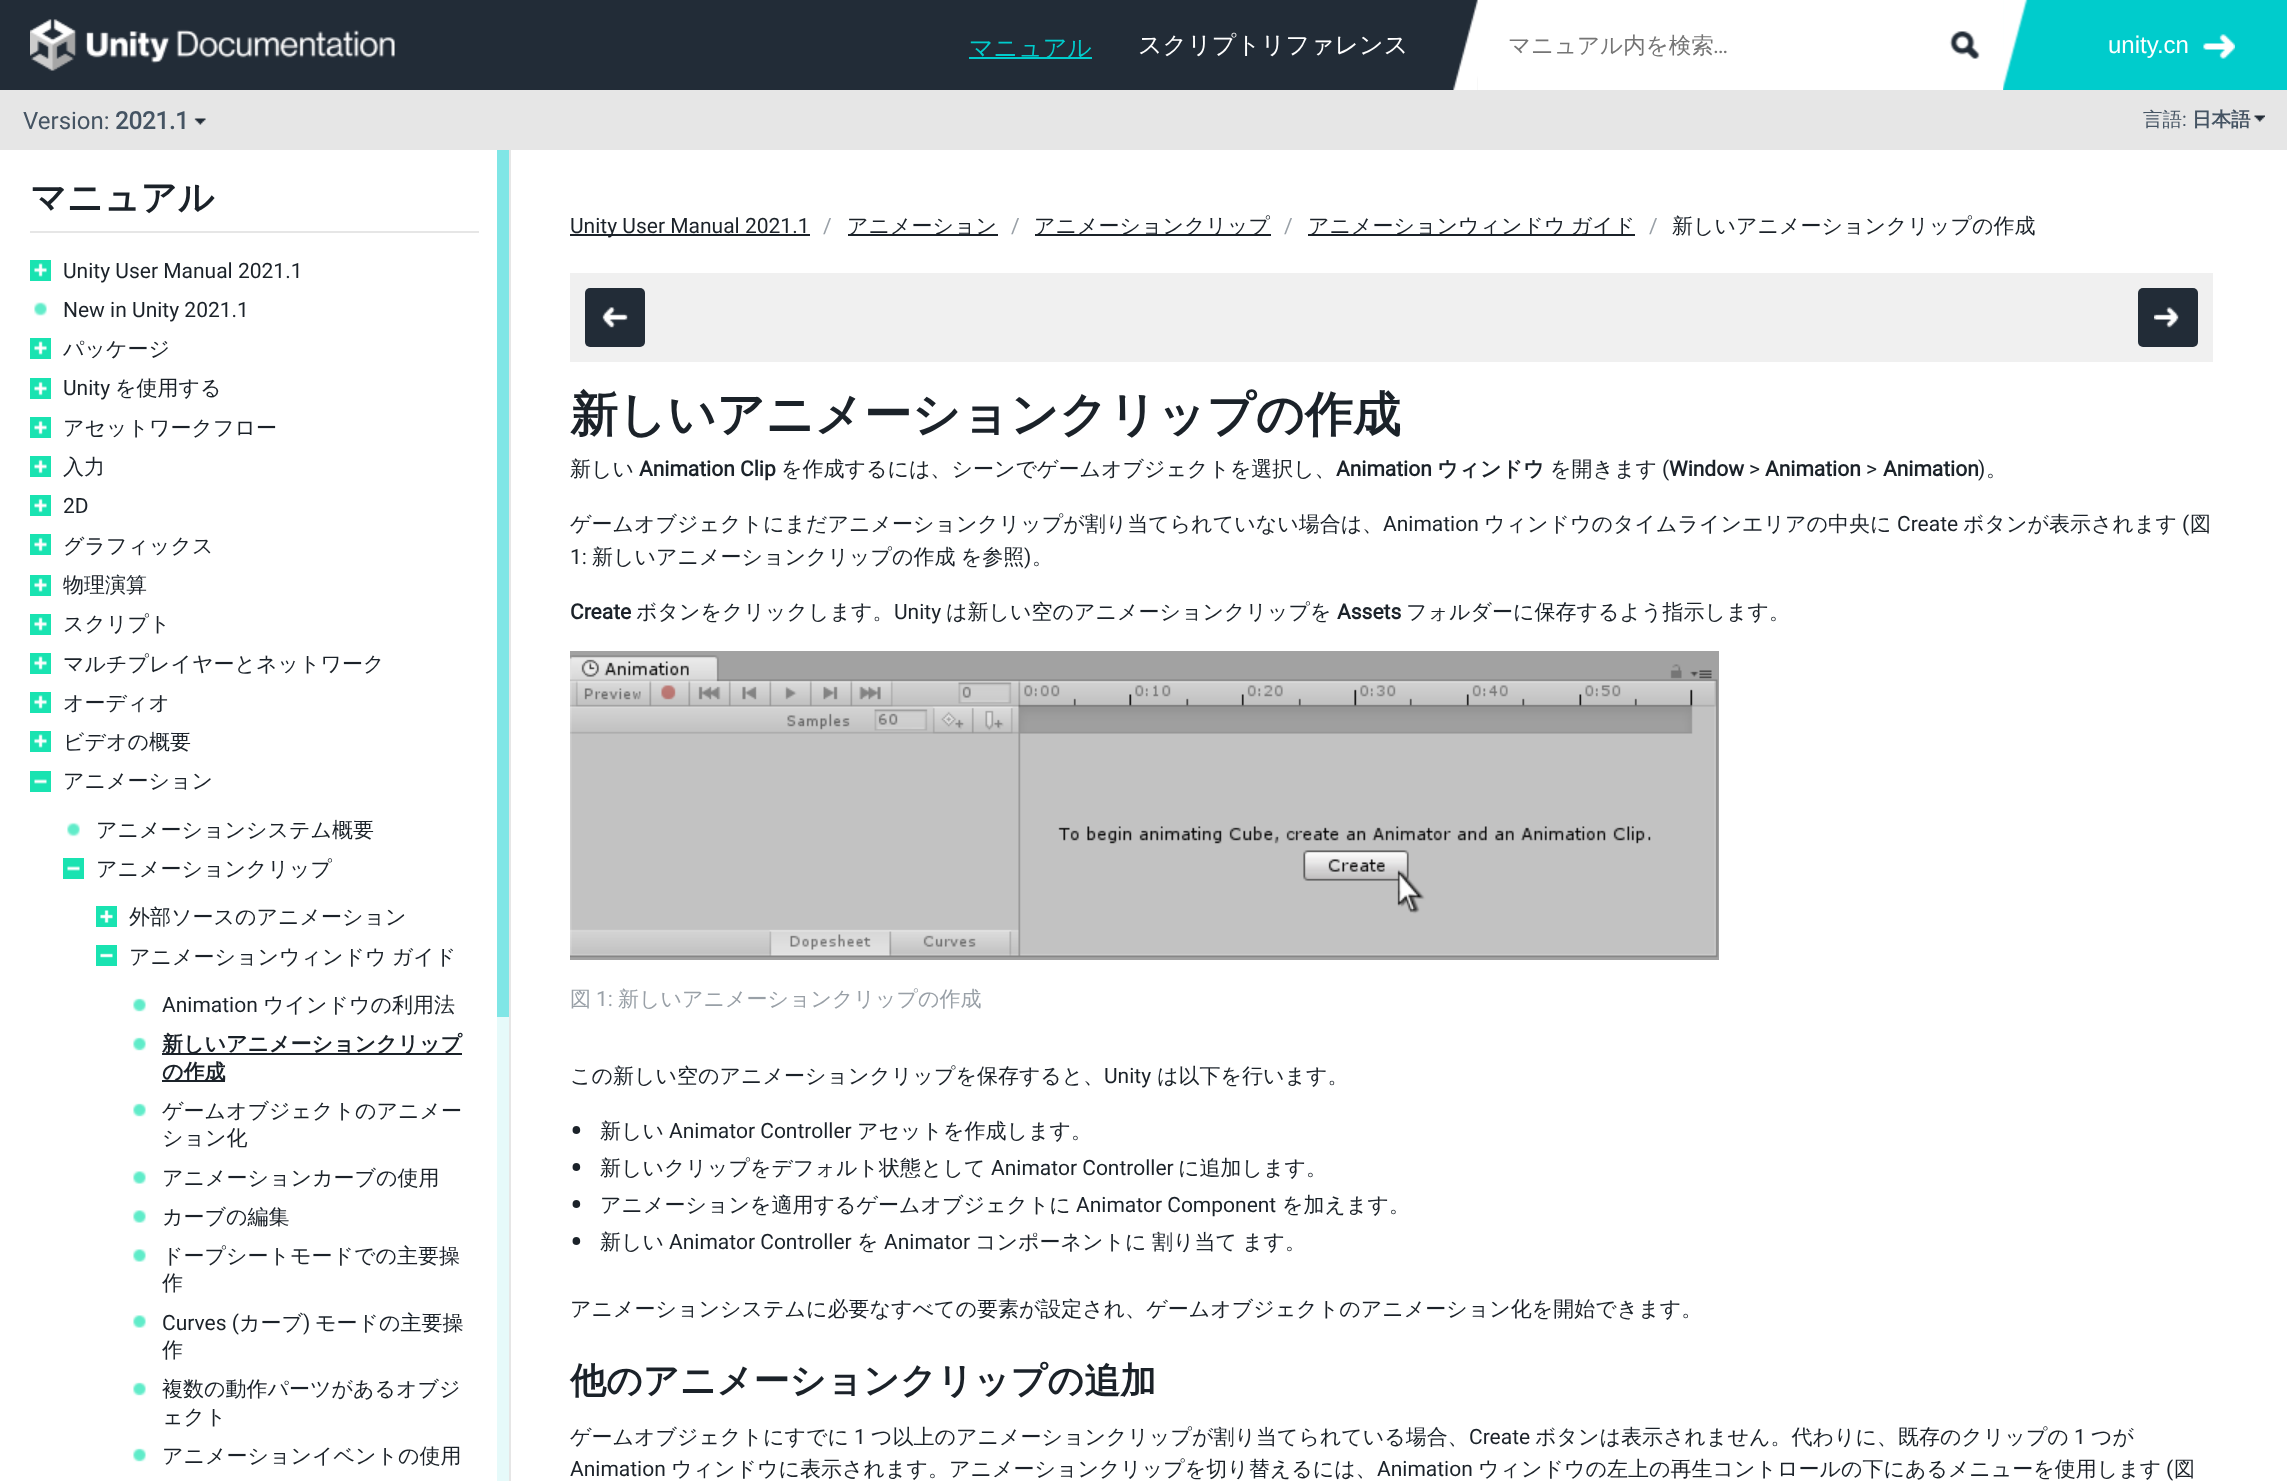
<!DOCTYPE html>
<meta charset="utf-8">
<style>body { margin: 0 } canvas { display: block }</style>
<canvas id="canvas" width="2287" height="1481"></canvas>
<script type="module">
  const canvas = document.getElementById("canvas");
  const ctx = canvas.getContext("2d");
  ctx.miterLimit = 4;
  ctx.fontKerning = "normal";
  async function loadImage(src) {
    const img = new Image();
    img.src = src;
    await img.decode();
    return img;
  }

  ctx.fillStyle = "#ffffff";
  ctx.fillRect(0, 0, 2287, 1481);
  ctx.fillStyle = "#222c37";
  ctx.fillRect(0, 0, 1478, 90);
  ctx.drawImage(await loadImage("img1.png"), 30, 19, 365, 52);
  ctx.font = "500 24px WenQuanYi Zen Hei";
  ctx.fillStyle = "#00cccc";
  ctx.fillText("マニュアル", 969, 56);
  ctx.fillRect(969, 57, 123, 2);
  ctx.fillStyle = "#ffffff";
  ctx.fillText("スクリプトリファレンス", 1138, 53);
  ctx.drawImage(await loadImage("img2.png"), 1453, 0, 25, 90);
  ctx.font = "500 22.5px WenQuanYi Zen Hei";
  ctx.fillStyle = "#757575";
  ctx.fillText("マニュアル内を検索", 1508, 53);
  ctx.font = "22.5px Roboto";
  ctx.fillText("…", 1713, 53);
  ctx.drawImage(await loadImage("img3.png"), 1949, 31, 31, 28);
  ctx.fillStyle = "#00cccc";
  ctx.fillRect(2003, 0, 284, 90);
  ctx.drawImage(await loadImage("img4.png"), 2003, 0, 25, 90);
  ctx.drawImage(await loadImage("img5.png"), 2203, 34, 32, 25);
  ctx.font = "24px Liberation Sans";
  ctx.fillStyle = "#ffffff";
  ctx.fillText("unity.cn", 2108, 53);
  ctx.fillStyle = "#e6e6e6";
  ctx.fillRect(0, 90, 2287, 60);
  ctx.font = "24px Roboto";
  ctx.fillStyle = "#455463";
  ctx.fillText("Version:", 23, 129);
  ctx.font = "bold 24px Roboto";
  ctx.fillText("2021.1", 115, 129);
  ctx.drawImage(await loadImage("img6.png"), 194, 118, 12, 7);
  ctx.font = "500 19.5px WenQuanYi Zen Hei";
  ctx.fillText("言語", 2143, 126);
  ctx.font = "19.5px Roboto";
  ctx.fillText(":", 2182, 126);
  ctx.font = "bold 19.5px WenQuanYi Zen Hei";
  ctx.fillText("日本語", 2192, 126);
  ctx.drawImage(await loadImage("img7.png"), 2254, 115, 11, 7);
  ctx.fillStyle = "#e6e6e6";
  ctx.fillRect(509, 150, 2, 1331);
  ctx.fillRect(30, 231, 449, 2);
  ctx.font = "bold 36px WenQuanYi Zen Hei";
  ctx.fillStyle = "#1b2229";
  ctx.fillText("マニュアル", 30, 210);
  ctx.fillStyle = "#19e3b1";
  ctx.fillRect(30, 260, 21, 21);
  ctx.drawImage(await loadImage("img8.png"), 34, 263, 13, 14);
  ctx.font = "21px Roboto";
  ctx.fillStyle = "#1b2229";
  ctx.fillText("Unity User Manual 2021.1", 63, 278);
  ctx.drawImage(await loadImage("img9.png"), 34, 302, 13, 14);
  ctx.fillText("New in Unity 2021.1", 63, 317);
  ctx.fillStyle = "#19e3b1";
  ctx.fillRect(30, 338, 21, 21);
  ctx.drawImage(await loadImage("img8.png"), 34, 341, 13, 14);
  ctx.font = "500 21px WenQuanYi Zen Hei";
  ctx.fillStyle = "#1b2229";
  ctx.fillText("パッケージ", 63, 356);
  ctx.fillStyle = "#19e3b1";
  ctx.fillRect(30, 378, 21, 21);
  ctx.drawImage(await loadImage("img10.png"), 34, 381, 13, 15);
  ctx.font = "21px Roboto";
  ctx.fillStyle = "#1b2229";
  ctx.fillText("Unity", 63, 395);
  ctx.font = "500 21px WenQuanYi Zen Hei";
  ctx.fillText("を使用する", 115, 395);
  ctx.fillStyle = "#19e3b1";
  ctx.fillRect(30, 417, 21, 21);
  ctx.drawImage(await loadImage("img10.png"), 34, 420, 13, 15);
  ctx.fillStyle = "#1b2229";
  ctx.fillText("アセットワークフロー", 63, 435);
  ctx.fillStyle = "#19e3b1";
  ctx.fillRect(30, 456, 21, 21);
  ctx.drawImage(await loadImage("img10.png"), 34, 459, 13, 15);
  ctx.fillStyle = "#1b2229";
  ctx.fillText("入力", 63, 474);
  ctx.fillStyle = "#19e3b1";
  ctx.fillRect(30, 495, 21, 21);
  ctx.drawImage(await loadImage("img10.png"), 34, 498, 13, 15);
  ctx.font = "21px Roboto";
  ctx.fillStyle = "#1b2229";
  ctx.fillText("2D", 63, 513);
  ctx.fillStyle = "#19e3b1";
  ctx.fillRect(30, 534, 21, 21);
  ctx.drawImage(await loadImage("img10.png"), 34, 537, 13, 15);
  ctx.font = "500 21px WenQuanYi Zen Hei";
  ctx.fillStyle = "#1b2229";
  ctx.fillText("グラフィックス", 63, 553);
  ctx.fillStyle = "#19e3b1";
  ctx.fillRect(30, 575, 21, 21);
  ctx.drawImage(await loadImage("img8.png"), 34, 578, 13, 14);
  ctx.fillStyle = "#1b2229";
  ctx.fillText("物理演算", 63, 592);
  ctx.fillStyle = "#19e3b1";
  ctx.fillRect(30, 614, 21, 21);
  ctx.drawImage(await loadImage("img8.png"), 34, 617, 13, 14);
  ctx.fillStyle = "#1b2229";
  ctx.fillText("スクリプト", 63, 631);
  ctx.fillStyle = "#19e3b1";
  ctx.fillRect(30, 653, 21, 21);
  ctx.drawImage(await loadImage("img8.png"), 34, 656, 13, 14);
  ctx.fillStyle = "#1b2229";
  ctx.fillText("マルチプレイヤーとネットワーク", 63, 671);
  ctx.fillStyle = "#19e3b1";
  ctx.fillRect(30, 692, 21, 21);
  ctx.drawImage(await loadImage("img8.png"), 34, 695, 13, 14);
  ctx.fillStyle = "#1b2229";
  ctx.fillText("オーディオ", 63, 710);
  ctx.fillStyle = "#19e3b1";
  ctx.fillRect(30, 731, 21, 21);
  ctx.drawImage(await loadImage("img8.png"), 34, 734, 13, 14);
  ctx.fillStyle = "#1b2229";
  ctx.fillText("ビデオの概要", 63, 749);
  ctx.fillStyle = "#19e3b1";
  ctx.fillRect(30, 771, 21, 21);
  ctx.drawImage(await loadImage("img11.png"), 34, 779, 13, 5);
  ctx.fillStyle = "#1b2229";
  ctx.fillText("アニメーション", 63, 788);
  ctx.drawImage(await loadImage("img12.png"), 67, 822, 13, 15);
  ctx.fillText("アニメーションシステム概要", 96, 837);
  ctx.fillStyle = "#19e3b1";
  ctx.fillRect(63, 858, 21, 21);
  ctx.drawImage(await loadImage("img11.png"), 67, 866, 13, 5);
  ctx.fillStyle = "#1b2229";
  ctx.fillText("アニメーションクリップ", 96, 876);
  ctx.fillStyle = "#19e3b1";
  ctx.fillRect(96, 906, 21, 21);
  ctx.drawImage(await loadImage("img13.png"), 100, 910, 13, 13);
  ctx.fillStyle = "#1b2229";
  ctx.fillText("外部ソースのアニメーション", 129, 924);
  ctx.fillStyle = "#19e3b1";
  ctx.fillRect(96, 945, 21, 21);
  ctx.drawImage(await loadImage("img14.png"), 100, 953, 13, 5);
  ctx.wordSpacing = "-1px";
  ctx.fillStyle = "#1b2229";
  ctx.fillText("アニメーションウィンドウ ガイド", 129, 964);
  ctx.drawImage(await loadImage("img15.png"), 133, 998, 13, 14);
  ctx.wordSpacing = "0px";
  ctx.font = "21px Roboto";
  ctx.fillText("Animation", 162, 1012);
  ctx.font = "500 21px WenQuanYi Zen Hei";
  ctx.fillText("ウインドウの利用法", 263, 1012);
  ctx.drawImage(await loadImage("img15.png"), 133, 1037, 13, 14);
  ctx.fillRect(162, 1053, 300, 2);
  ctx.font = "bold 21px WenQuanYi Zen Hei";
  ctx.fillText("新しいアニメーションクリップ", 162, 1051);
  ctx.fillRect(162, 1080, 63, 2);
  ctx.fillText("の作成", 162, 1079);
  ctx.drawImage(await loadImage("img15.png"), 133, 1103, 13, 14);
  ctx.font = "500 21px WenQuanYi Zen Hei";
  ctx.fillText("ゲームオブジェクトのアニメー", 162, 1118);
  ctx.fillText("ション化", 162, 1145);
  ctx.drawImage(await loadImage("img16.png"), 133, 1171, 13, 13);
  ctx.fillText("アニメーションカーブの使用", 162, 1185);
  ctx.drawImage(await loadImage("img16.png"), 133, 1210, 13, 13);
  ctx.fillText("カーブの編集", 162, 1224);
  ctx.drawImage(await loadImage("img16.png"), 133, 1249, 13, 13);
  ctx.fillText("ドープシートモードでの主要操", 162, 1263);
  ctx.fillText("作", 162, 1290);
  ctx.drawImage(await loadImage("img16.png"), 133, 1315, 13, 13);
  ctx.font = "21px Roboto";
  ctx.fillText("Curves (", 162, 1330);
  ctx.font = "500 21px WenQuanYi Zen Hei";
  ctx.fillText("カーブ", 239, 1330);
  ctx.font = "21px Roboto";
  ctx.fillText(")", 303, 1330);
  ctx.font = "500 21px WenQuanYi Zen Hei";
  ctx.fillText("モードの主要操", 315, 1330);
  ctx.fillText("作", 162, 1357);
  ctx.drawImage(await loadImage("img15.png"), 133, 1382, 13, 14);
  ctx.fillText("複数の動作パーツがあるオブジ", 162, 1396);
  ctx.fillText("ェクト", 162, 1424);
  ctx.drawImage(await loadImage("img15.png"), 133, 1448, 13, 14);
  ctx.fillText("アニメーションイベントの使用", 162, 1463);
  ctx.fillStyle = "#80e6e6";
  ctx.fillRect(497, 150, 12, 867);
  ctx.fillStyle = "#e6fafa";
  ctx.fillRect(497, 1017, 12, 464);
  ctx.fillStyle = "#1b2229";
  ctx.fillRect(570, 234, 240, 2);
  ctx.font = "21px Roboto";
  ctx.fillText("Unity User Manual 2021.1", 570, 233);
  ctx.fillStyle = "#99a0a7";
  ctx.fillText("/", 823, 233);
  ctx.fillStyle = "#1b2229";
  ctx.fillRect(848, 234, 150, 2);
  ctx.font = "500 21px WenQuanYi Zen Hei";
  ctx.fillText("アニメーション", 847, 233);
  ctx.font = "21px Roboto";
  ctx.fillStyle = "#99a0a7";
  ctx.fillText("/", 1011, 233);
  ctx.fillStyle = "#1b2229";
  ctx.fillRect(1035, 234, 236, 2);
  ctx.font = "500 21px WenQuanYi Zen Hei";
  ctx.fillText("アニメーションクリップ", 1034, 233);
  ctx.font = "21px Roboto";
  ctx.fillStyle = "#99a0a7";
  ctx.fillText("/", 1284, 233);
  ctx.fillStyle = "#1b2229";
  ctx.fillRect(1308, 234, 327, 2);
  ctx.wordSpacing = "-1px";
  ctx.font = "500 21px WenQuanYi Zen Hei";
  ctx.fillText("アニメーションウィンドウ ガイド", 1308, 233);
  ctx.wordSpacing = "0px";
  ctx.font = "21px Roboto";
  ctx.fillStyle = "#99a0a7";
  ctx.fillText("/", 1649, 233);
  ctx.font = "500 21px WenQuanYi Zen Hei";
  ctx.fillStyle = "#1b2229";
  ctx.fillText("新しいアニメーションクリップの作成", 1672, 233);
  ctx.fillStyle = "#f0f0f0";
  ctx.fillRect(570, 273, 1643, 89);
  ctx.fillStyle = "#222c37";
  ctx.beginPath();
  ctx.roundRect(585, 288, 60, 59, 5);
  ctx.fill();
  ctx.drawImage(await loadImage("img17.png"), 602, 307, 26, 21);
  ctx.beginPath();
  ctx.roundRect(2138, 288, 60, 59, 5);
  ctx.fill();
  ctx.drawImage(await loadImage("img18.png"), 2154, 307, 25, 21);
  ctx.font = "bold 48px WenQuanYi Zen Hei";
  ctx.fillStyle = "#1b2229";
  ctx.fillText("新しいアニメーションクリップの作成", 570, 431);
  ctx.font = "500 21px WenQuanYi Zen Hei";
  ctx.fillText("新しい", 570, 476);
  ctx.font = "bold 21px Roboto";
  ctx.fillText("Animation Clip", 639, 476);
  ctx.font = "500 21px WenQuanYi Zen Hei";
  ctx.fillText("を作成するには、シーンでゲームオブジェクトを選択し、", 781, 476);
  ctx.font = "bold 21px Roboto";
  ctx.fillText("Animation", 1336, 476);
  ctx.font = "bold 21px WenQuanYi Zen Hei";
  ctx.fillText("ウィンドウ", 1437, 476);
  ctx.font = "500 21px WenQuanYi Zen Hei";
  ctx.fillText("を開きます", 1550, 476);
  ctx.font = "21px Roboto";
  ctx.fillText("(", 1662, 476);
  ctx.font = "bold 21px Roboto";
  ctx.fillText("Window", 1669, 476);
  ctx.font = "21px Roboto";
  ctx.fillText(">", 1749, 476);
  ctx.font = "bold 21px Roboto";
  ctx.fillText("Animation", 1765, 476);
  ctx.font = "21px Roboto";
  ctx.fillText(">", 1866, 476);
  ctx.font = "bold 21px Roboto";
  ctx.fillText("Animation", 1883, 476);
  ctx.font = "21px Roboto";
  ctx.fillText(")", 1978, 476);
  ctx.font = "500 21px WenQuanYi Zen Hei";
  ctx.fillText("。", 1986, 476);
  ctx.fillText("ゲームオブジェクトにまだアニメーションクリップが割り当てられていない場合は、", 570, 531);
  ctx.font = "21px Roboto";
  ctx.fillText("Animation", 1383, 531);
  ctx.font = "500 21px WenQuanYi Zen Hei";
  ctx.fillText("ウィンドウのタイムラインエリアの中央に", 1484, 531);
  ctx.font = "21px Roboto";
  ctx.fillText("Create", 1897, 531);
  ctx.font = "500 21px WenQuanYi Zen Hei";
  ctx.fillText("ボタンが表示されます", 1963, 531);
  ctx.font = "21px Roboto";
  ctx.fillText("(", 2182, 531);
  ctx.font = "500 21px WenQuanYi Zen Hei";
  ctx.fillText("図", 2190, 531);
  ctx.font = "21px Roboto";
  ctx.fillText("1:", 570, 564);
  ctx.wordSpacing = "-1px";
  ctx.font = "500 21px WenQuanYi Zen Hei";
  ctx.fillText("新しいアニメーションクリップの作成 を参照", 592, 564);
  ctx.wordSpacing = "0px";
  ctx.font = "21px Roboto";
  ctx.fillText(")", 1024, 564);
  ctx.font = "500 21px WenQuanYi Zen Hei";
  ctx.fillText("。", 1032, 564);
  ctx.font = "bold 21px Roboto";
  ctx.fillText("Create", 570, 619);
  ctx.font = "500 21px WenQuanYi Zen Hei";
  ctx.fillText("ボタンをクリックします。", 636, 619);
  ctx.font = "21px Roboto";
  ctx.fillText("Unity", 894, 619);
  ctx.font = "500 21px WenQuanYi Zen Hei";
  ctx.fillText("は新しい空のアニメーションクリップを", 946, 619);
  ctx.font = "bold 21px Roboto";
  ctx.fillText("Assets", 1337, 619);
  ctx.font = "500 21px WenQuanYi Zen Hei";
  ctx.fillText("フォルダーに保存するよう指示します。", 1406, 619);
  ctx.drawImage(await loadImage("img19.png"), 570, 651, 1149, 309);
  ctx.fillStyle = "#99a0a7";
  ctx.fillText("図", 570, 1006);
  ctx.font = "21px Roboto";
  ctx.fillText("1:", 596, 1006);
  ctx.font = "500 21px WenQuanYi Zen Hei";
  ctx.fillText("新しいアニメーションクリップの作成", 618, 1006);
  ctx.fillStyle = "#1b2229";
  ctx.fillText("この新しい空のアニメーションクリップを保存すると、", 570, 1083);
  ctx.font = "21px Roboto";
  ctx.fillText("Unity", 1104, 1083);
  ctx.font = "500 21px WenQuanYi Zen Hei";
  ctx.fillText("は以下を行います。", 1157, 1083);
  ctx.font = "38px Roboto";
  ctx.fillText("•", 570, 1144);
  ctx.font = "500 21px WenQuanYi Zen Hei";
  ctx.fillText("新しい", 600, 1138);
  ctx.font = "21px Roboto";
  ctx.fillText("Animator Controller", 669, 1138);
  ctx.font = "500 21px WenQuanYi Zen Hei";
  ctx.fillText("アセットを作成します。", 857, 1138);
  ctx.font = "38px Roboto";
  ctx.fillText("•", 570, 1181);
  ctx.font = "500 21px WenQuanYi Zen Hei";
  ctx.fillText("新しいクリップをデフォルト状態として", 600, 1175);
  ctx.font = "21px Roboto";
  ctx.fillText("Animator Controller", 991, 1175);
  ctx.font = "500 21px WenQuanYi Zen Hei";
  ctx.fillText("に追加します。", 1178, 1175);
  ctx.font = "38px Roboto";
  ctx.fillText("•", 570, 1218);
  ctx.font = "500 21px WenQuanYi Zen Hei";
  ctx.fillText("アニメーションを適用するゲームオブジェクトに", 600, 1212);
  ctx.font = "21px Roboto";
  ctx.fillText("Animator Component", 1076, 1212);
  ctx.font = "500 21px WenQuanYi Zen Hei";
  ctx.fillText("を加えます。", 1282, 1212);
  ctx.font = "38px Roboto";
  ctx.fillText("•", 570, 1255);
  ctx.font = "500 21px WenQuanYi Zen Hei";
  ctx.fillText("新しい", 600, 1249);
  ctx.font = "21px Roboto";
  ctx.fillText("Animator Controller", 669, 1249);
  ctx.font = "500 21px WenQuanYi Zen Hei";
  ctx.fillText("を", 857, 1249);
  ctx.font = "21px Roboto";
  ctx.fillText("Animator", 884, 1249);
  ctx.font = "500 21px WenQuanYi Zen Hei";
  ctx.fillText("コンポーネントに", 975, 1249);
  ctx.fillText("割り当て", 1152, 1249);
  ctx.fillText("ます。", 1242, 1249);
  ctx.fillText("アニメーションシステムに必要なすべての要素が設定され、ゲームオブジェクトのアニメーション化を開始できます。", 570, 1316);
  ctx.font = "bold 36px WenQuanYi Zen Hei";
  ctx.fillText("他のアニメーションクリップの追加", 570, 1393);
  ctx.font = "500 21px WenQuanYi Zen Hei";
  ctx.fillText("ゲームオブジェクトにすでに", 570, 1444);
  ctx.font = "21px Roboto";
  ctx.fillText("1", 854, 1444);
  ctx.font = "500 21px WenQuanYi Zen Hei";
  ctx.fillText("つ以上のアニメーションクリップが割り当てられている場合、", 871, 1444);
  ctx.font = "21px Roboto";
  ctx.fillText("Create", 1469, 1444);
  ctx.font = "500 21px WenQuanYi Zen Hei";
  ctx.fillText("ボタンは表示されません。代わりに、既存のクリップの", 1535, 1444);
  ctx.font = "21px Roboto";
  ctx.fillText("1", 2074, 1444);
  ctx.font = "500 21px WenQuanYi Zen Hei";
  ctx.fillText("つが", 2091, 1444);
  ctx.font = "21px Roboto";
  ctx.fillText("Animation", 570, 1476);
  ctx.font = "500 21px WenQuanYi Zen Hei";
  ctx.fillText("ウィンドウに表示されます。アニメーションクリップを切り替えるには、", 671, 1476);
  ctx.font = "21px Roboto";
  ctx.fillText("Animation", 1377, 1476);
  ctx.font = "500 21px WenQuanYi Zen Hei";
  ctx.fillText("ウィンドウの左上の再生コントロールの下にあるメニューを使用します", 1478, 1476);
  ctx.font = "21px Roboto";
  ctx.fillText("(", 2166, 1476);
  ctx.font = "500 21px WenQuanYi Zen Hei";
  ctx.fillText("図", 2174, 1476);
</script>
